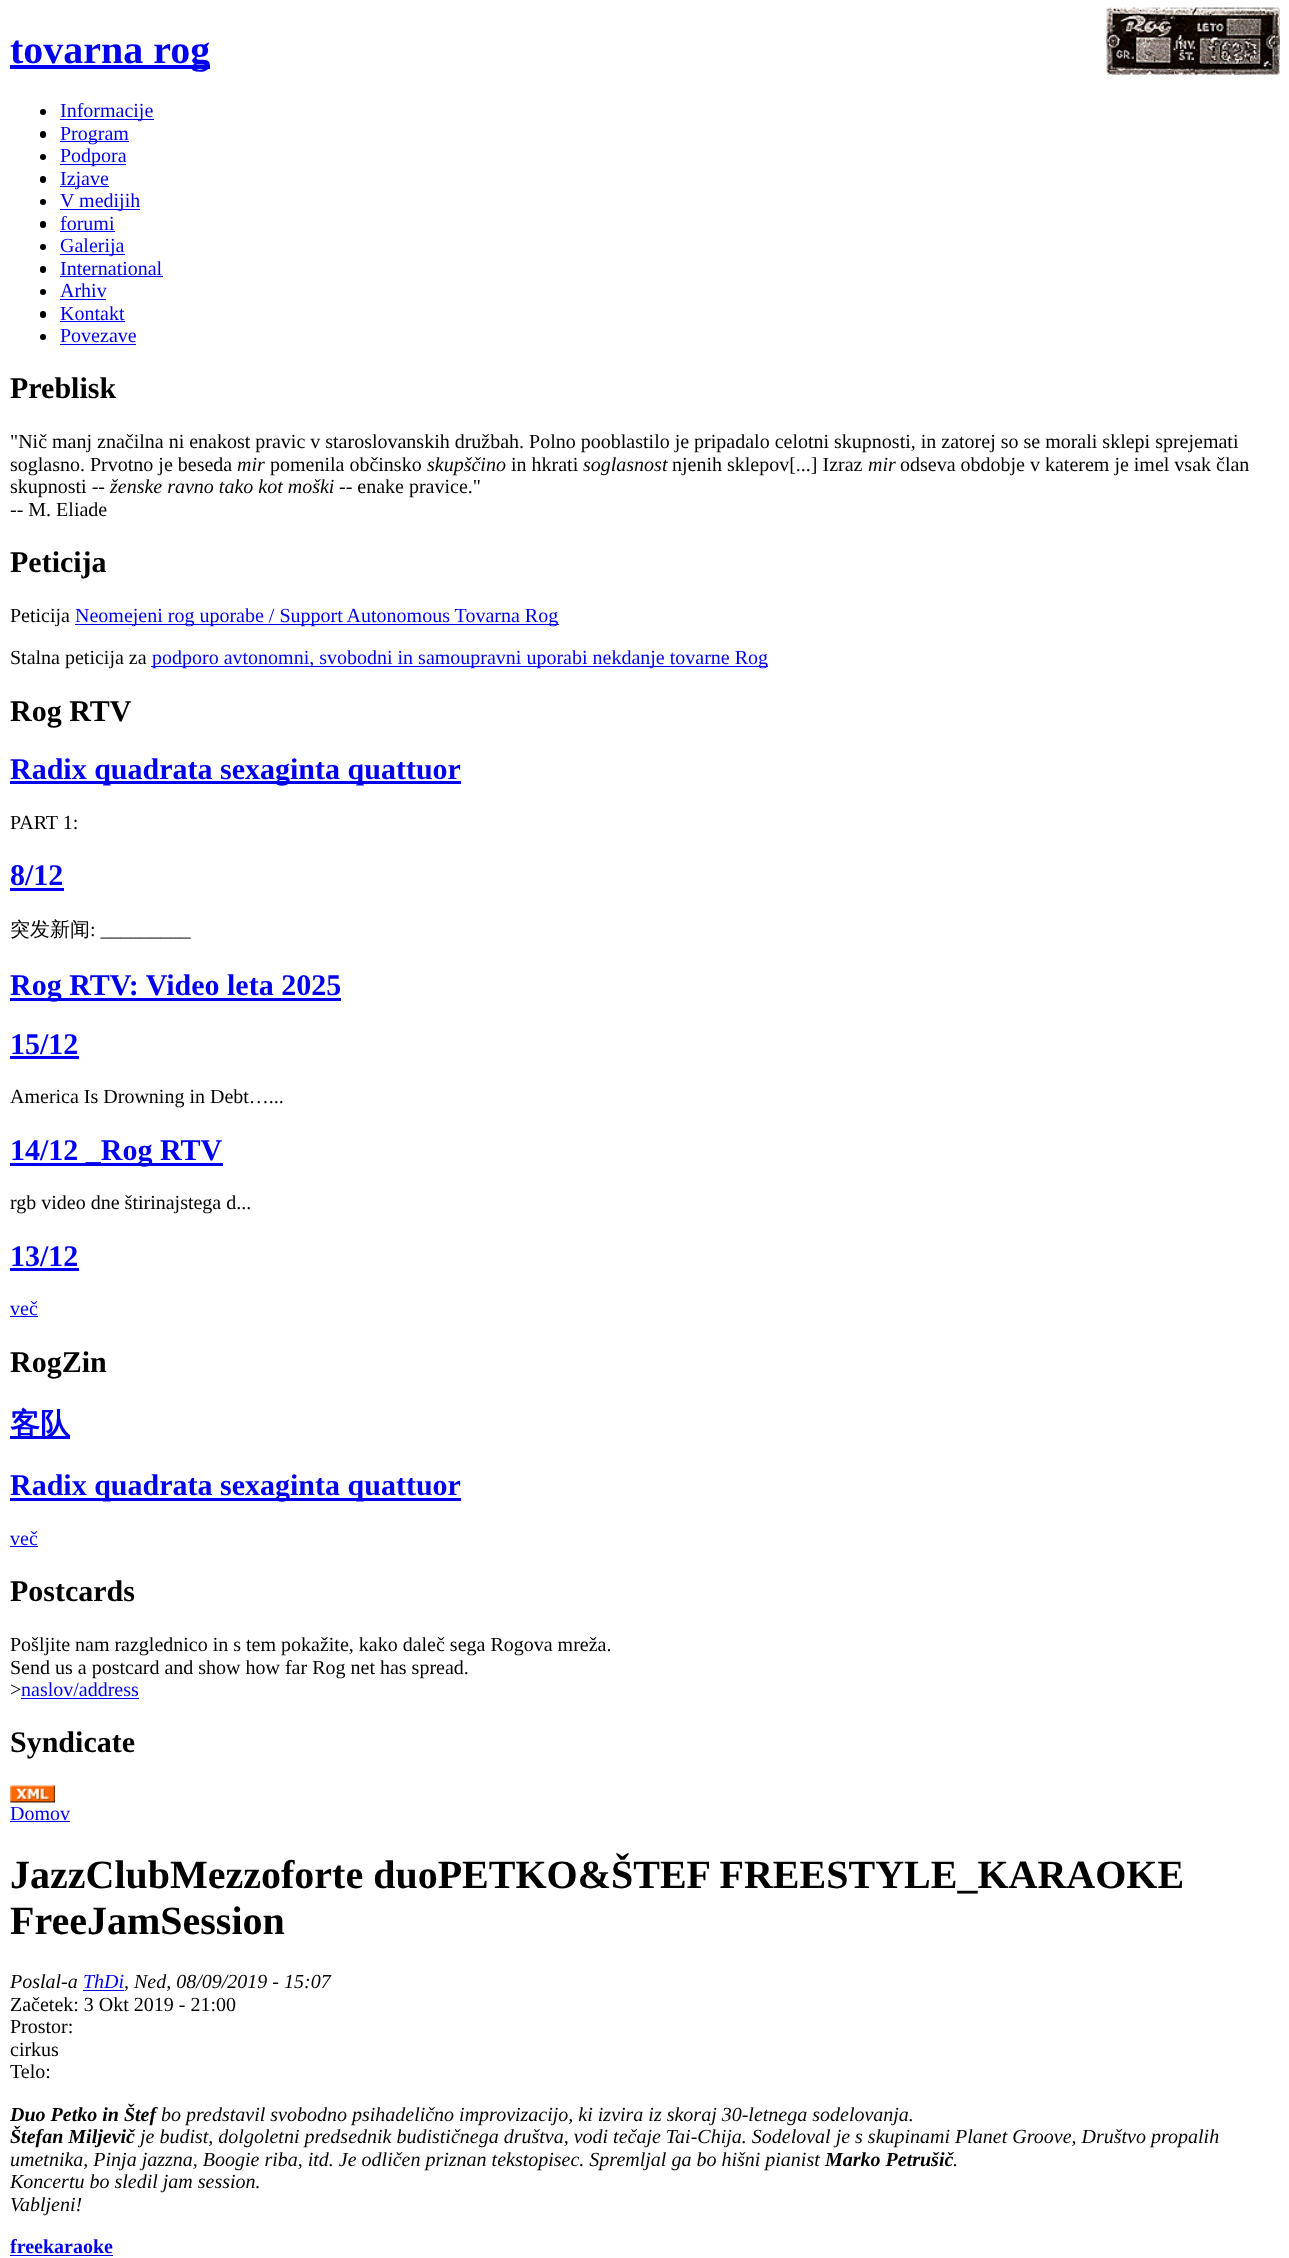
<!DOCTYPE html>
<meta charset="utf-8">
<style>body { margin: 0 } canvas { display: block }</style>
<canvas id="canvas" width="1289" height="2258"></canvas>
<script type="module">
  const canvas = document.getElementById("canvas");
  const ctx = canvas.getContext("2d");
  ctx.miterLimit = 4;
  ctx.fontKerning = "normal";
  async function loadImage(src) {
    const img = new Image();
    img.src = src;
    await img.decode();
    return img;
  }

  ctx.fillStyle = "#ffffff";
  ctx.fillRect(0, 0, 1289, 2258);
  ctx.fillStyle = "#0000ee";
  ctx.fillRect(10, 65, 200, 4);
  ctx.font = "bold 40px Liberation Serif";
  ctx.fillText("tovarna rog", 10, 63);
  ctx.drawImage(await loadImage("img1.png"), 1106, 7, 174, 68);
  ctx.fillStyle = "#000000";
  ctx.beginPath();
  ctx.arc(43, 112, 3, 0, Math.PI * 2);
  ctx.fill();
  ctx.fillStyle = "#0000ee";
  ctx.fillRect(60, 119, 94, 1);
  ctx.font = "20px Liberation Serif";
  ctx.fillText("Informacije", 60, 117);
  ctx.fillStyle = "#000000";
  ctx.beginPath();
  ctx.roundRect(40, 131, 6, 7, 3);
  ctx.fill();
  ctx.fillStyle = "#0000ee";
  ctx.fillRect(60, 141, 69, 1);
  ctx.fillText("Program", 60, 140);
  ctx.fillStyle = "#000000";
  ctx.beginPath();
  ctx.arc(43, 157, 3, 0, Math.PI * 2);
  ctx.fill();
  ctx.fillStyle = "#0000ee";
  ctx.fillRect(60, 164, 66, 1);
  ctx.fillText("Podpora", 60, 162);
  ctx.fillStyle = "#000000";
  ctx.beginPath();
  ctx.roundRect(40, 176, 6, 7, 3);
  ctx.fill();
  ctx.fillStyle = "#0000ee";
  ctx.fillRect(60, 186, 49, 1);
  ctx.fillText("Izjave", 60, 185);
  ctx.fillStyle = "#000000";
  ctx.beginPath();
  ctx.arc(43, 202, 3, 0, Math.PI * 2);
  ctx.fill();
  ctx.fillStyle = "#0000ee";
  ctx.fillRect(60, 209, 80, 1);
  ctx.fillText("V medijih", 60, 207);
  ctx.fillStyle = "#000000";
  ctx.beginPath();
  ctx.roundRect(40, 221, 6, 7, 3);
  ctx.fill();
  ctx.fillStyle = "#0000ee";
  ctx.fillText("forumi", 60, 230);
  ctx.fillRect(60, 231, 55, 1);
  ctx.fillStyle = "#000000";
  ctx.beginPath();
  ctx.arc(43, 247, 3, 0, Math.PI * 2);
  ctx.fill();
  ctx.fillStyle = "#0000ee";
  ctx.fillRect(60, 254, 65, 1);
  ctx.fillText("Galerija", 60, 252);
  ctx.fillStyle = "#000000";
  ctx.beginPath();
  ctx.roundRect(40, 266, 6, 7, 3);
  ctx.fill();
  ctx.fillStyle = "#0000ee";
  ctx.fillText("International", 60, 275);
  ctx.fillRect(60, 276, 103, 1);
  ctx.fillStyle = "#000000";
  ctx.beginPath();
  ctx.arc(43, 292, 3, 0, Math.PI * 2);
  ctx.fill();
  ctx.fillStyle = "#0000ee";
  ctx.fillText("Arhiv", 60, 297);
  ctx.fillRect(60, 299, 46, 1);
  ctx.fillStyle = "#000000";
  ctx.beginPath();
  ctx.roundRect(40, 311, 6, 7, 3);
  ctx.fill();
  ctx.fillStyle = "#0000ee";
  ctx.fillText("Kontakt", 60, 320);
  ctx.fillRect(60, 321, 65, 1);
  ctx.fillStyle = "#000000";
  ctx.beginPath();
  ctx.arc(43, 337, 3, 0, Math.PI * 2);
  ctx.fill();
  ctx.fillStyle = "#0000ee";
  ctx.fillText("Povezave", 60, 342);
  ctx.fillRect(60, 344, 76, 1);
  ctx.font = "bold 30px Liberation Serif";
  ctx.fillStyle = "#000000";
  ctx.fillText("Preblisk", 10, 398);
  ctx.font = "20px Liberation Serif";
  ctx.fillText("\"Nič manj značilna ni enakost pravic v staroslovanskih družbah. Polno pooblastilo je pripadalo celotni skupnosti, in zatorej so se morali sklepi sprejemati", 10, 448);
  ctx.fillText("soglasno. Prvotno je beseda", 10, 471);
  ctx.font = "italic 20px Liberation Serif";
  ctx.fillText("mir", 237, 471);
  ctx.font = "20px Liberation Serif";
  ctx.fillText("pomenila občinsko", 270, 471);
  ctx.font = "italic 20px Liberation Serif";
  ctx.fillText("skupščino", 427, 471);
  ctx.font = "20px Liberation Serif";
  ctx.fillText("in hkrati", 511, 471);
  ctx.font = "italic 20px Liberation Serif";
  ctx.fillText("soglasnost", 583, 471);
  ctx.font = "20px Liberation Serif";
  ctx.fillText("njenih sklepov[...] Izraz", 672, 471);
  ctx.font = "italic 20px Liberation Serif";
  ctx.fillText("mir", 868, 471);
  ctx.font = "20px Liberation Serif";
  ctx.fillText("odseva obdobje v katerem je imel vsak član", 900, 471);
  ctx.fillText("skupnosti --", 10, 493);
  ctx.font = "italic 20px Liberation Serif";
  ctx.fillText("ženske ravno tako kot moški", 110, 493);
  ctx.font = "20px Liberation Serif";
  ctx.fillText("-- enake pravice.\"", 339, 493);
  ctx.fillText("-- M. Eliade", 10, 516);
  ctx.font = "bold 30px Liberation Serif";
  ctx.fillText("Peticija", 10, 572);
  ctx.font = "20px Liberation Serif";
  ctx.fillText("Peticija", 10, 622);
  ctx.fillStyle = "#0000ee";
  ctx.fillRect(75, 624, 484, 1);
  ctx.fillText("Neomejeni rog uporabe / Support Autonomous Tovarna Rog", 75, 622);
  ctx.fillStyle = "#000000";
  ctx.fillText("Stalna peticija za", 10, 664);
  ctx.fillStyle = "#0000ee";
  ctx.fillRect(151, 666, 617, 1);
  ctx.fillText("podporo avtonomni, svobodni in samoupravni uporabi nekdanje tovarne Rog", 152, 664);
  ctx.font = "bold 30px Liberation Serif";
  ctx.fillStyle = "#000000";
  ctx.fillText("Rog RTV", 10, 721);
  ctx.fillStyle = "#0000ee";
  ctx.fillRect(10, 781, 451, 3);
  ctx.fillText("Radix quadrata sexaginta quattuor", 10, 779);
  ctx.font = "20px Liberation Serif";
  ctx.fillStyle = "#000000";
  ctx.fillText("PART 1:", 10, 829);
  ctx.font = "bold 30px Liberation Serif";
  ctx.fillStyle = "#0000ee";
  ctx.fillText("8/12", 10, 885);
  ctx.fillRect(10, 888, 54, 3);
  ctx.font = "500 20px WenQuanYi Zen Hei";
  ctx.fillStyle = "#000000";
  ctx.fillText("突发新闻", 10, 936);
  ctx.font = "20px Liberation Serif";
  ctx.fillText(": _________", 90, 936);
  ctx.fillStyle = "#0000ee";
  ctx.fillRect(10, 998, 331, 3);
  ctx.font = "bold 30px Liberation Serif";
  ctx.fillText("Rog RTV: Video leta 2025", 10, 995);
  ctx.fillText("15/12", 10, 1054);
  ctx.fillRect(10, 1056, 69, 3);
  ctx.font = "20px Liberation Serif";
  ctx.fillStyle = "#000000";
  ctx.fillText("America Is Drowning in Debt…...", 10, 1103);
  ctx.fillStyle = "#0000ee";
  ctx.fillRect(10, 1163, 213, 3);
  ctx.font = "bold 30px Liberation Serif";
  ctx.fillText("14/12 _Rog RTV", 10, 1160);
  ctx.font = "20px Liberation Serif";
  ctx.fillStyle = "#000000";
  ctx.fillText("rgb video dne štirinajstega d...", 10, 1209);
  ctx.font = "bold 30px Liberation Serif";
  ctx.fillStyle = "#0000ee";
  ctx.fillText("13/12", 10, 1266);
  ctx.fillRect(10, 1268, 69, 3);
  ctx.font = "20px Liberation Serif";
  ctx.fillText("več", 10, 1315);
  ctx.fillRect(10, 1316, 28, 1);
  ctx.font = "bold 30px Liberation Serif";
  ctx.fillStyle = "#000000";
  ctx.fillText("RogZin", 10, 1372);
  ctx.fillStyle = "#0000ee";
  ctx.fillRect(10, 1436, 60, 3);
  ctx.font = "bold 30px WenQuanYi Zen Hei";
  ctx.fillText("客队", 10, 1434);
  ctx.fillRect(10, 1498, 451, 3);
  ctx.font = "bold 30px Liberation Serif";
  ctx.fillText("Radix quadrata sexaginta quattuor", 10, 1495);
  ctx.font = "20px Liberation Serif";
  ctx.fillText("več", 10, 1545);
  ctx.fillRect(10, 1546, 28, 1);
  ctx.font = "bold 30px Liberation Serif";
  ctx.fillStyle = "#000000";
  ctx.fillText("Postcards", 10, 1601);
  ctx.font = "20px Liberation Serif";
  ctx.fillText("Pošljite nam razglednico in s tem pokažite, kako daleč sega Rogova mreža.", 10, 1651);
  ctx.fillText("Send us a postcard and show how far Rog net has spread.", 10, 1674);
  ctx.fillText(">", 10, 1696);
  ctx.fillStyle = "#0000ee";
  ctx.fillText("naslov/address", 21, 1696);
  ctx.fillRect(21, 1698, 118, 1);
  ctx.font = "bold 30px Liberation Serif";
  ctx.fillStyle = "#000000";
  ctx.fillText("Syndicate", 10, 1752);
  ctx.drawImage(await loadImage("img2.png"), 10, 1785, 45, 18);
  ctx.font = "20px Liberation Serif";
  ctx.fillStyle = "#0000ee";
  ctx.fillText("Domov", 10, 1820);
  ctx.fillRect(10, 1821, 60, 1);
  ctx.font = "bold 40px Liberation Serif";
  ctx.fillStyle = "#000000";
  ctx.fillText("JazzClubMezzoforte duoPETKO&ŠTEF FREESTYLE_KARAOKE", 10, 1888);
  ctx.fillText("FreeJamSession", 10, 1934);
  ctx.font = "italic 20px Liberation Serif";
  ctx.fillText("Poslal-a", 10, 1988);
  ctx.fillStyle = "#0000ee";
  ctx.fillText("ThDi", 83, 1988);
  ctx.fillStyle = "#000000";
  ctx.fillText(", Ned, 08/09/2019 - 15:07", 124, 1988);
  ctx.fillStyle = "#0000ee";
  ctx.fillRect(83, 1990, 41, 1);
  ctx.font = "20px Liberation Serif";
  ctx.fillStyle = "#000000";
  ctx.fillText("Začetek: 3 Okt 2019 - 21:00", 10, 2011);
  ctx.fillText("Prostor:", 10, 2033);
  ctx.fillText("cirkus", 10, 2056);
  ctx.fillText("Telo:", 10, 2078);
  ctx.font = "italic bold 20px Liberation Serif";
  ctx.fillText("Duo Petko in Štef", 10, 2121);
  ctx.font = "italic 20px Liberation Serif";
  ctx.fillText("bo predstavil svobodno psihadelično improvizacijo, ki izvira iz skoraj 30-letnega sodelovanja.", 161, 2121);
  ctx.font = "italic bold 20px Liberation Serif";
  ctx.fillText("Štefan Miljevič", 10, 2143);
  ctx.font = "italic 20px Liberation Serif";
  ctx.fillText("je budist, dolgoletni predsednik budističnega društva, vodi tečaje Tai-Chija. Sodeloval je s skupinami Planet Groove, Društvo propalih", 140, 2143);
  ctx.fillText("umetnika, Pinja jazzna, Boogie riba, itd. Je odličen priznan tekstopisec. Spremljal ga bo hišni pianist", 10, 2166);
  ctx.font = "italic bold 20px Liberation Serif";
  ctx.fillText("Marko Petrušič", 825, 2166);
  ctx.font = "italic 20px Liberation Serif";
  ctx.fillText(".", 953, 2166);
  ctx.fillText("Koncertu bo sledil jam session.", 10, 2188);
  ctx.fillText("Vabljeni!", 10, 2211);
  ctx.font = "bold 20px Liberation Serif";
  ctx.fillStyle = "#0000ee";
  ctx.fillText("freekaraoke", 10, 2253);
  ctx.fillRect(10, 2255, 103, 1);
</script>
